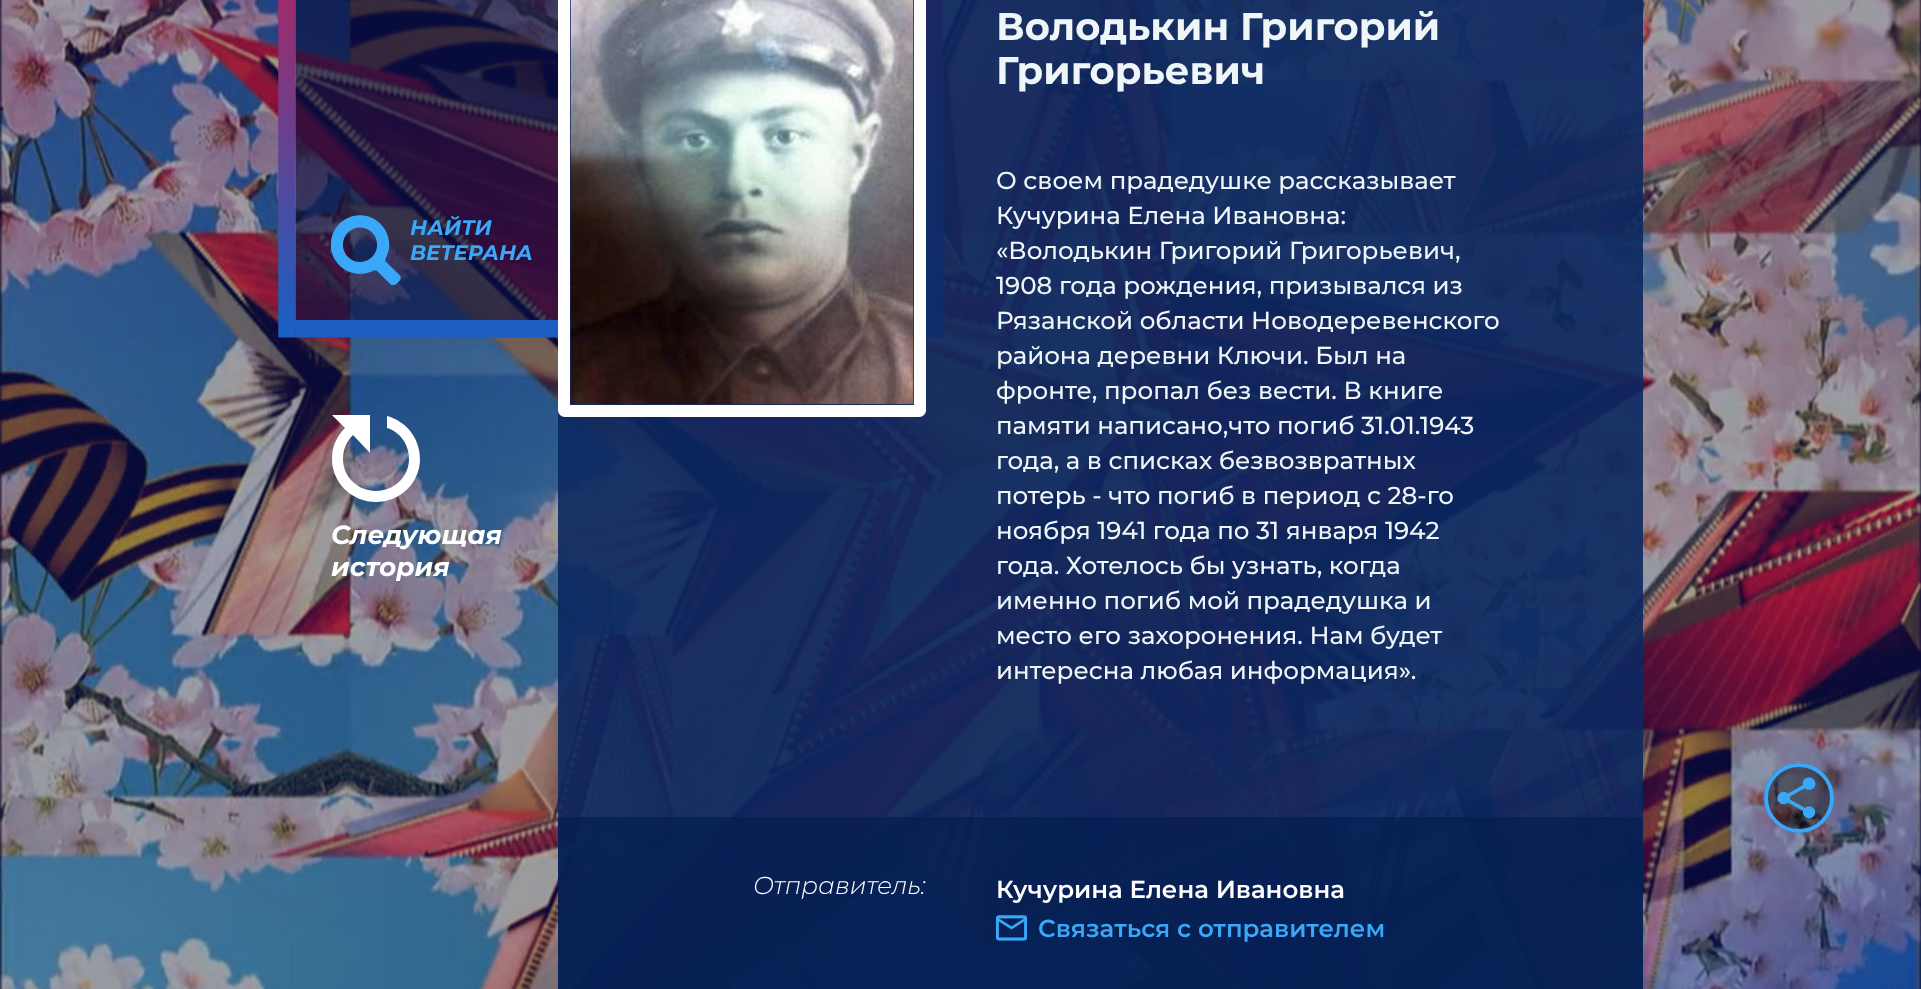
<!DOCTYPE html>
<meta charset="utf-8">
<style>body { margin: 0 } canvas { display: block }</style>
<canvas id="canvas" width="1921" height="989"></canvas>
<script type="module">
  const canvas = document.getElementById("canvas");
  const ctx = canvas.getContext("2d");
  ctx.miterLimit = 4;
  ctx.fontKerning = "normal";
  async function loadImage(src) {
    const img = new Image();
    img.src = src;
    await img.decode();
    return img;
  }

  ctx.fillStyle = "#ffffff";
  ctx.fillRect(0, 0, 1921, 989);
  ctx.drawImage(await loadImage("img1.png"), 0, 0, 1921, 989);
  ctx.drawImage(await loadImage("img2.png"), 278, 0, 666, 338);
  ctx.fillStyle = "rgba(7, 13, 64, 0.6)";
  ctx.fillRect(296, 0, 618, 320);
  ctx.drawImage(await loadImage("img3.png"), 331, 215, 70, 70);
  ctx.font = "italic bold 21px Montserrat";
  ctx.fillStyle = "#3aa8f8";
  ctx.fillText("НАЙТИ", 410, 235);
  ctx.fillText("ВЕТЕРАНА", 410, 260);
  ctx.fillStyle = "#ffffff";
  ctx.beginPath();
  ctx.moveTo(345, 428);
  ctx.bezierCurveTo(337, 436, 332, 446, 332, 459);
  ctx.bezierCurveTo(332, 483, 352, 502, 376, 502);
  ctx.bezierCurveTo(400, 502, 420, 483, 420, 459);
  ctx.bezierCurveTo(420, 438, 406, 421, 387, 416);
  ctx.lineTo(387, 428);
  ctx.bezierCurveTo(400, 432, 409, 444, 409, 459);
  ctx.bezierCurveTo(409, 477, 394, 491, 376, 491);
  ctx.bezierCurveTo(358, 491, 343, 477, 343, 459);
  ctx.bezierCurveTo(343, 449, 347, 441, 353, 435);
  ctx.lineTo(370, 453);
  ctx.lineTo(370, 415);
  ctx.lineTo(332, 415);
  ctx.closePath();
  ctx.fill();
  ctx.font = "italic bold 26.25px Montserrat";
  ctx.fillText("Следующая", 331, 544);
  ctx.fillText("история", 331, 576);
  ctx.fillStyle = "rgba(11, 40, 97, 0.9)";
  ctx.fillRect(558, 0, 1085, 989);
  ctx.fillStyle = "#ffffff";
  ctx.beginPath();
  ctx.moveTo(565, -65);
  ctx.bezierCurveTo(561, -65, 558, -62, 558, -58);
  ctx.lineTo(558, 410);
  ctx.bezierCurveTo(558, 414, 561, 417, 565, 417);
  ctx.lineTo(919, 417);
  ctx.bezierCurveTo(923, 417, 926, 414, 926, 410);
  ctx.lineTo(926, -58);
  ctx.bezierCurveTo(926, -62, 923, -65, 919, -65);
  ctx.closePath();
  ctx.moveTo(570, -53);
  ctx.lineTo(570, 405);
  ctx.lineTo(914, 405);
  ctx.lineTo(914, -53);
  ctx.closePath();
  ctx.fill("evenodd");
  ctx.drawImage(await loadImage("img4.png"), 570, 0, 344, 404);
  ctx.font = "bold 38.5px Montserrat";
  ctx.fillStyle = "#eff6f8";
  ctx.fillText("Володькин Григорий", 996, 40);
  ctx.fillText("Григорьевич", 996, 84);
  ctx.font = "500 24.5px Montserrat";
  ctx.fillText("О своем прадедушке рассказывает", 996, 189);
  ctx.fillText("Кучурина Елена Ивановна:", 996, 224);
  ctx.fillText("«Володькин Григорий Григорьевич,", 996, 259);
  ctx.fillText("1908 года рождения, призывался из", 996, 294);
  ctx.fillText("Рязанской области Новодеревенского", 996, 329);
  ctx.fillText("района деревни Ключи. Был на", 996, 364);
  ctx.fillText("фронте, пропал без вести. В книге", 996, 399);
  ctx.fillText("памяти написано,что погиб 31.01.1943", 996, 434);
  ctx.fillText("года, а в списках безвозвратных", 996, 469);
  ctx.fillText("потерь - что погиб в период с 28-го", 996, 504);
  ctx.fillText("ноября 1941 года по 31 января 1942", 996, 539);
  ctx.fillText("года. Хотелось бы узнать, когда", 996, 574);
  ctx.fillText("именно погиб мой прадедушка и", 996, 609);
  ctx.fillText("место его захоронения. Нам будет", 996, 644);
  ctx.fillText("интересна любая информация».", 996, 679);
  ctx.fillStyle = "rgba(4, 30, 81, 0.7)";
  ctx.fillRect(558, 817, 1085, 172);
  ctx.font = "italic 300 24.5px Montserrat";
  ctx.fillStyle = "#ffffff";
  ctx.fillText("Отправитель:", 753, 894);
  ctx.font = "600 24.5px Montserrat";
  ctx.fillText("Кучурина Елена Ивановна", 996, 898);
  ctx.drawImage(await loadImage("img5.png"), 996, 915, 31, 26);
  ctx.fillStyle = "#3aa8f8";
  ctx.fillText("Связаться с отправителем", 1038, 937);
  ctx.fillStyle = "rgba(0, 0, 0, 0.4)";
  ctx.beginPath();
  ctx.arc(1799, 798, 35, 0, Math.PI * 2);
  ctx.fill();
  ctx.drawImage(await loadImage("img6.png"), 1777, 777, 39, 42);
  ctx.beginPath();
  ctx.arc(1799, 798, 33, 0, Math.PI * 2);
  ctx.strokeStyle = "#3aa8f8";
  ctx.lineWidth = 4;
  ctx.stroke();
</script>
